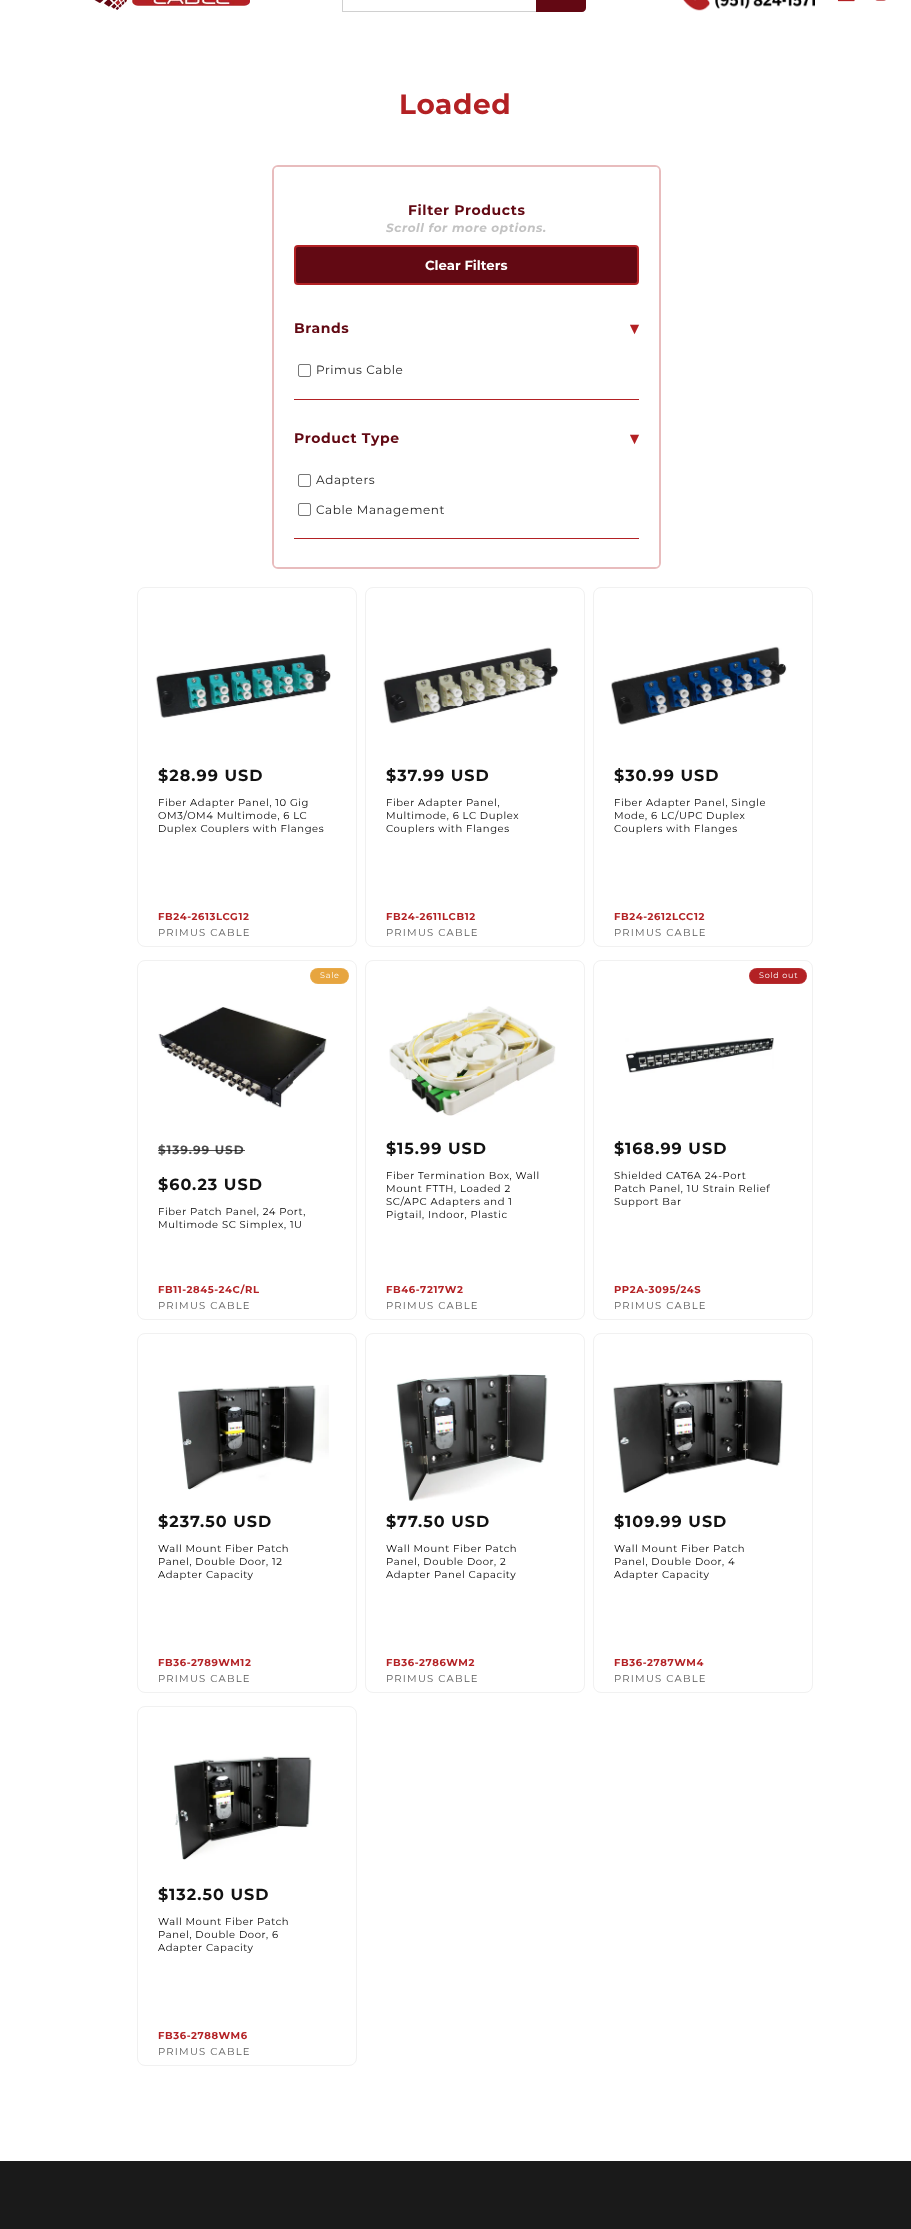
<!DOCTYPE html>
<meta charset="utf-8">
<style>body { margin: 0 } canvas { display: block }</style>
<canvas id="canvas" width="911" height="2229"></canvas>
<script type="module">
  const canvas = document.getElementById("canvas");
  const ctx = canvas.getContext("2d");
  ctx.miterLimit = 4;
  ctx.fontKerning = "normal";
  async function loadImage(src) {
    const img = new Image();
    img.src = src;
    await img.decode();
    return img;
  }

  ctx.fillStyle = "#ffffff";
  ctx.fillRect(0, 0, 911, 2229);
  ctx.drawImage(await loadImage("img1.png"), 94, 0, 156, 10);
  ctx.strokeStyle = "#d0d0d0";
  ctx.strokeRect(342.5, -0.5, 197, 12);
  ctx.fillStyle = "#630813";
  ctx.beginPath();
  ctx.moveTo(536, -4);
  ctx.lineTo(582, -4);
  ctx.bezierCurveTo(584, -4, 586, -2, 586, 0);
  ctx.lineTo(586, 8);
  ctx.bezierCurveTo(586, 10, 584, 12, 582, 12);
  ctx.lineTo(536, 12);
  ctx.closePath();
  ctx.fill();
  ctx.drawImage(await loadImage("img2.png"), 683, 0, 132, 11);
  ctx.drawImage(await loadImage("img3.png"), 837, 0, 18, 2);
  ctx.drawImage(await loadImage("img4.png"), 875, 0, 11, 1);
  ctx.letterSpacing = "0.6px";
  ctx.font = "bold 28px Montserrat";
  ctx.fillStyle = "#b32124";
  ctx.fillText("Loaded", 399, 114);
  ctx.beginPath();
  ctx.roundRect(273, 166, 387, 402, 5);
  ctx.strokeStyle = "#e8bcbd";
  ctx.lineWidth = 2;
  ctx.stroke();
  ctx.fillStyle = "#ffffff";
  ctx.beginPath();
  ctx.roundRect(274, 167, 385, 400, 4);
  ctx.fill();
  ctx.font = "bold 14px Montserrat";
  ctx.fillStyle = "#620913";
  ctx.fillText("Filter Products", 408, 215);
  ctx.font = "italic bold 12px Montserrat";
  ctx.fillStyle = "#c2c2c2";
  ctx.fillText("Scroll for more options.", 386, 232);
  ctx.fillStyle = "#620913";
  ctx.beginPath();
  ctx.roundRect(295, 246, 343, 38, 3);
  ctx.fill();
  ctx.strokeStyle = "#b32124";
  ctx.stroke();
  ctx.letterSpacing = "0px";
  ctx.font = "bold 13.25px Montserrat";
  ctx.fillStyle = "#ffffff";
  ctx.fillText("Clear Filters", 425, 270);
  ctx.fillStyle = "#b32124";
  ctx.fillRect(294, 399, 345, 1);
  ctx.letterSpacing = "0.6px";
  ctx.font = "bold 14px Montserrat";
  ctx.fillStyle = "#620913";
  ctx.fillText("Brands", 294, 333);
  ctx.font = "bold 17px DejaVu Sans";
  ctx.fillStyle = "#b32124";
  ctx.fillText("▾", 630, 334);
  ctx.beginPath();
  ctx.roundRect(298.5, 364.5, 12, 12, 1.5);
  ctx.strokeStyle = "#767676";
  ctx.lineWidth = 1;
  ctx.stroke();
  ctx.font = "12px Montserrat";
  ctx.fillStyle = "#1f1f1f";
  ctx.fillText("Primus Cable", 316, 374);
  ctx.fillStyle = "#b32124";
  ctx.fillRect(294, 538, 345, 1);
  ctx.font = "bold 14px Montserrat";
  ctx.fillStyle = "#620913";
  ctx.fillText("Product Type", 294, 443);
  ctx.font = "bold 17px DejaVu Sans";
  ctx.fillStyle = "#b32124";
  ctx.fillText("▾", 630, 444);
  ctx.beginPath();
  ctx.roundRect(298.5, 474.5, 12, 12, 1.5);
  ctx.stroke();
  ctx.font = "12px Montserrat";
  ctx.fillStyle = "#1f1f1f";
  ctx.fillText("Adapters", 316, 484);
  ctx.beginPath();
  ctx.roundRect(298.5, 503.5, 12, 12, 1.5);
  ctx.stroke();
  ctx.fillText("Cable Management", 316, 514);
  ctx.beginPath();
  ctx.roundRect(137.5, 587.5, 219, 359, 7.5);
  ctx.strokeStyle = "#f1f1f1";
  ctx.stroke();
  ctx.drawImage(await loadImage("img5.png"), 155, 653, 176, 65);
  ctx.letterSpacing = "1px";
  ctx.font = "bold 16px Montserrat";
  ctx.fillStyle = "#121212";
  ctx.fillText("$28.99 USD", 158, 781);
  ctx.letterSpacing = "0.6px";
  ctx.font = "10px Montserrat";
  ctx.fillStyle = "#000000";
  ctx.fillText("Fiber Adapter Panel, 10 Gig", 158, 806);
  ctx.fillText("OM3/OM4 Multimode, 6 LC", 158, 819);
  ctx.fillText("Duplex Couplers with Flanges", 158, 832);
  ctx.font = "bold 10px Montserrat";
  ctx.fillStyle = "#b32124";
  ctx.fillText("FB24-2613LCG12", 158, 920);
  ctx.letterSpacing = "1.25px";
  ctx.font = "10px Montserrat";
  ctx.fillStyle = "#595959";
  ctx.fillText("PRIMUS CABLE", 158, 936);
  ctx.beginPath();
  ctx.roundRect(365.5, 587.5, 219, 359, 7.5);
  ctx.stroke();
  ctx.drawImage(await loadImage("img6.png"), 383, 647, 176, 77);
  ctx.letterSpacing = "1px";
  ctx.font = "bold 16px Montserrat";
  ctx.fillStyle = "#121212";
  ctx.fillText("$37.99 USD", 386, 781);
  ctx.letterSpacing = "0.6px";
  ctx.font = "10px Montserrat";
  ctx.fillStyle = "#000000";
  ctx.fillText("Fiber Adapter Panel,", 386, 806);
  ctx.fillText("Multimode, 6 LC Duplex", 386, 819);
  ctx.fillText("Couplers with Flanges", 386, 832);
  ctx.font = "bold 10px Montserrat";
  ctx.fillStyle = "#b32124";
  ctx.fillText("FB24-2611LCB12", 386, 920);
  ctx.letterSpacing = "1.25px";
  ctx.font = "10px Montserrat";
  ctx.fillStyle = "#595959";
  ctx.fillText("PRIMUS CABLE", 386, 936);
  ctx.beginPath();
  ctx.roundRect(593.5, 587.5, 219, 359, 7.5);
  ctx.stroke();
  ctx.drawImage(await loadImage("img7.png"), 611, 646, 176, 79);
  ctx.letterSpacing = "1px";
  ctx.font = "bold 16px Montserrat";
  ctx.fillStyle = "#121212";
  ctx.fillText("$30.99 USD", 614, 781);
  ctx.letterSpacing = "0.6px";
  ctx.font = "10px Montserrat";
  ctx.fillStyle = "#000000";
  ctx.fillText("Fiber Adapter Panel, Single", 614, 806);
  ctx.fillText("Mode, 6 LC/UPC Duplex", 614, 819);
  ctx.fillText("Couplers with Flanges", 614, 832);
  ctx.font = "bold 10px Montserrat";
  ctx.fillStyle = "#b32124";
  ctx.fillText("FB24-2612LCC12", 614, 920);
  ctx.letterSpacing = "1.25px";
  ctx.font = "10px Montserrat";
  ctx.fillStyle = "#595959";
  ctx.fillText("PRIMUS CABLE", 614, 936);
  ctx.beginPath();
  ctx.roundRect(137.5, 960.5, 219, 359, 7.5);
  ctx.stroke();
  ctx.fillStyle = "#e7a53f";
  ctx.beginPath();
  ctx.roundRect(310, 968, 39, 16, 8);
  ctx.fill();
  ctx.beginPath();
  ctx.roundRect(310.35, 968.35, 38.3, 15.3, 7.65);
  ctx.strokeStyle = "rgba(255, 255, 255, 0.1)";
  ctx.lineWidth = 0.7;
  ctx.stroke();
  ctx.letterSpacing = "0.75px";
  ctx.font = "8px Montserrat";
  ctx.fillStyle = "#ffffff";
  ctx.fillText("Sale", 320, 978);
  ctx.drawImage(await loadImage("img8.png"), 158, 1007, 169, 101);
  ctx.letterSpacing = "1px";
  ctx.font = "bold 12px Montserrat";
  ctx.fillStyle = "#4d4d4d";
  ctx.fillText("$139.99 USD", 158, 1154);
  ctx.fillStyle = "rgba(18, 18, 18, 0.75)";
  ctx.fillRect(158, 1150, 87, 1);
  ctx.font = "bold 16px Montserrat";
  ctx.fillStyle = "#121212";
  ctx.fillText("$60.23 USD", 158, 1190);
  ctx.letterSpacing = "0.6px";
  ctx.font = "10px Montserrat";
  ctx.fillStyle = "#000000";
  ctx.fillText("Fiber Patch Panel, 24 Port,", 158, 1215);
  ctx.fillText("Multimode SC Simplex, 1U", 158, 1228);
  ctx.font = "bold 10px Montserrat";
  ctx.fillStyle = "#b32124";
  ctx.fillText("FB11-2845-24C/RL", 158, 1293);
  ctx.letterSpacing = "1.25px";
  ctx.font = "10px Montserrat";
  ctx.fillStyle = "#595959";
  ctx.fillText("PRIMUS CABLE", 158, 1309);
  ctx.beginPath();
  ctx.roundRect(365.5, 960.5, 219, 359, 7.5);
  ctx.strokeStyle = "#f1f1f1";
  ctx.lineWidth = 1;
  ctx.stroke();
  ctx.drawImage(await loadImage("img9.png"), 389, 1006, 167, 110);
  ctx.letterSpacing = "1px";
  ctx.font = "bold 16px Montserrat";
  ctx.fillStyle = "#121212";
  ctx.fillText("$15.99 USD", 386, 1154);
  ctx.letterSpacing = "0.6px";
  ctx.font = "10px Montserrat";
  ctx.fillStyle = "#000000";
  ctx.fillText("Fiber Termination Box, Wall", 386, 1179);
  ctx.fillText("Mount FTTH, Loaded 2", 386, 1192);
  ctx.fillText("SC/APC Adapters and 1", 386, 1205);
  ctx.fillText("Pigtail, Indoor, Plastic", 386, 1218);
  ctx.font = "bold 10px Montserrat";
  ctx.fillStyle = "#b32124";
  ctx.fillText("FB46-7217W2", 386, 1293);
  ctx.letterSpacing = "1.25px";
  ctx.font = "10px Montserrat";
  ctx.fillStyle = "#595959";
  ctx.fillText("PRIMUS CABLE", 386, 1309);
  ctx.beginPath();
  ctx.roundRect(593.5, 960.5, 219, 359, 7.5);
  ctx.stroke();
  ctx.fillStyle = "#b32124";
  ctx.beginPath();
  ctx.roundRect(749, 968, 58, 16, 8);
  ctx.fill();
  ctx.beginPath();
  ctx.roundRect(749.35, 968.35, 57.3, 15.3, 7.65);
  ctx.strokeStyle = "rgba(255, 255, 255, 0.1)";
  ctx.lineWidth = 0.7;
  ctx.stroke();
  ctx.letterSpacing = "0.75px";
  ctx.font = "8px Montserrat";
  ctx.fillStyle = "#ffffff";
  ctx.fillText("Sold out", 759, 978);
  ctx.drawImage(await loadImage("img10.png"), 625, 1038, 149, 35);
  ctx.letterSpacing = "1px";
  ctx.font = "bold 16px Montserrat";
  ctx.fillStyle = "#121212";
  ctx.fillText("$168.99 USD", 614, 1154);
  ctx.letterSpacing = "0.6px";
  ctx.font = "10px Montserrat";
  ctx.fillStyle = "#000000";
  ctx.fillText("Shielded CAT6A 24-Port", 614, 1179);
  ctx.fillText("Patch Panel, 1U Strain Relief", 614, 1192);
  ctx.fillText("Support Bar", 614, 1205);
  ctx.font = "bold 10px Montserrat";
  ctx.fillStyle = "#b32124";
  ctx.fillText("PP2A-3095/24S", 614, 1293);
  ctx.letterSpacing = "1.25px";
  ctx.font = "10px Montserrat";
  ctx.fillStyle = "#595959";
  ctx.fillText("PRIMUS CABLE", 614, 1309);
  ctx.beginPath();
  ctx.roundRect(137.5, 1333.5, 219, 359, 7.5);
  ctx.strokeStyle = "#f1f1f1";
  ctx.lineWidth = 1;
  ctx.stroke();
  ctx.drawImage(await loadImage("img11.png"), 178, 1385, 151, 105);
  ctx.letterSpacing = "1px";
  ctx.font = "bold 16px Montserrat";
  ctx.fillStyle = "#121212";
  ctx.fillText("$237.50 USD", 158, 1527);
  ctx.letterSpacing = "0.6px";
  ctx.font = "10px Montserrat";
  ctx.fillStyle = "#000000";
  ctx.fillText("Wall Mount Fiber Patch", 158, 1552);
  ctx.fillText("Panel, Double Door, 12", 158, 1565);
  ctx.fillText("Adapter Capacity", 158, 1578);
  ctx.font = "bold 10px Montserrat";
  ctx.fillStyle = "#b32124";
  ctx.fillText("FB36-2789WM12", 158, 1666);
  ctx.letterSpacing = "1.25px";
  ctx.font = "10px Montserrat";
  ctx.fillStyle = "#595959";
  ctx.fillText("PRIMUS CABLE", 158, 1682);
  ctx.beginPath();
  ctx.roundRect(365.5, 1333.5, 219, 359, 7.5);
  ctx.stroke();
  ctx.drawImage(await loadImage("img12.png"), 396, 1374, 152, 127);
  ctx.letterSpacing = "1px";
  ctx.font = "bold 16px Montserrat";
  ctx.fillStyle = "#121212";
  ctx.fillText("$77.50 USD", 386, 1527);
  ctx.letterSpacing = "0.6px";
  ctx.font = "10px Montserrat";
  ctx.fillStyle = "#000000";
  ctx.fillText("Wall Mount Fiber Patch", 386, 1552);
  ctx.fillText("Panel, Double Door, 2", 386, 1565);
  ctx.fillText("Adapter Panel Capacity", 386, 1578);
  ctx.font = "bold 10px Montserrat";
  ctx.fillStyle = "#b32124";
  ctx.fillText("FB36-2786WM2", 386, 1666);
  ctx.letterSpacing = "1.25px";
  ctx.font = "10px Montserrat";
  ctx.fillStyle = "#595959";
  ctx.fillText("PRIMUS CABLE", 386, 1682);
  ctx.beginPath();
  ctx.roundRect(593.5, 1333.5, 219, 359, 7.5);
  ctx.stroke();
  ctx.drawImage(await loadImage("img13.png"), 613, 1379, 170, 114);
  ctx.letterSpacing = "1px";
  ctx.font = "bold 16px Montserrat";
  ctx.fillStyle = "#121212";
  ctx.fillText("$109.99 USD", 614, 1527);
  ctx.letterSpacing = "0.6px";
  ctx.font = "10px Montserrat";
  ctx.fillStyle = "#000000";
  ctx.fillText("Wall Mount Fiber Patch", 614, 1552);
  ctx.fillText("Panel, Double Door, 4", 614, 1565);
  ctx.fillText("Adapter Capacity", 614, 1578);
  ctx.font = "bold 10px Montserrat";
  ctx.fillStyle = "#b32124";
  ctx.fillText("FB36-2787WM4", 614, 1666);
  ctx.letterSpacing = "1.25px";
  ctx.font = "10px Montserrat";
  ctx.fillStyle = "#595959";
  ctx.fillText("PRIMUS CABLE", 614, 1682);
  ctx.beginPath();
  ctx.roundRect(137.5, 1706.5, 219, 359, 7.5);
  ctx.stroke();
  ctx.drawImage(await loadImage("img14.png"), 174, 1756, 138, 104);
  ctx.letterSpacing = "1px";
  ctx.font = "bold 16px Montserrat";
  ctx.fillStyle = "#121212";
  ctx.fillText("$132.50 USD", 158, 1900);
  ctx.letterSpacing = "0.6px";
  ctx.font = "10px Montserrat";
  ctx.fillStyle = "#000000";
  ctx.fillText("Wall Mount Fiber Patch", 158, 1925);
  ctx.fillText("Panel, Double Door, 6", 158, 1938);
  ctx.fillText("Adapter Capacity", 158, 1951);
  ctx.font = "bold 10px Montserrat";
  ctx.fillStyle = "#b32124";
  ctx.fillText("FB36-2788WM6", 158, 2039);
  ctx.letterSpacing = "1.25px";
  ctx.font = "10px Montserrat";
  ctx.fillStyle = "#595959";
  ctx.fillText("PRIMUS CABLE", 158, 2055);
  ctx.fillStyle = "#1a1a1a";
  ctx.fillRect(0, 2161, 911, 68);
</script>
